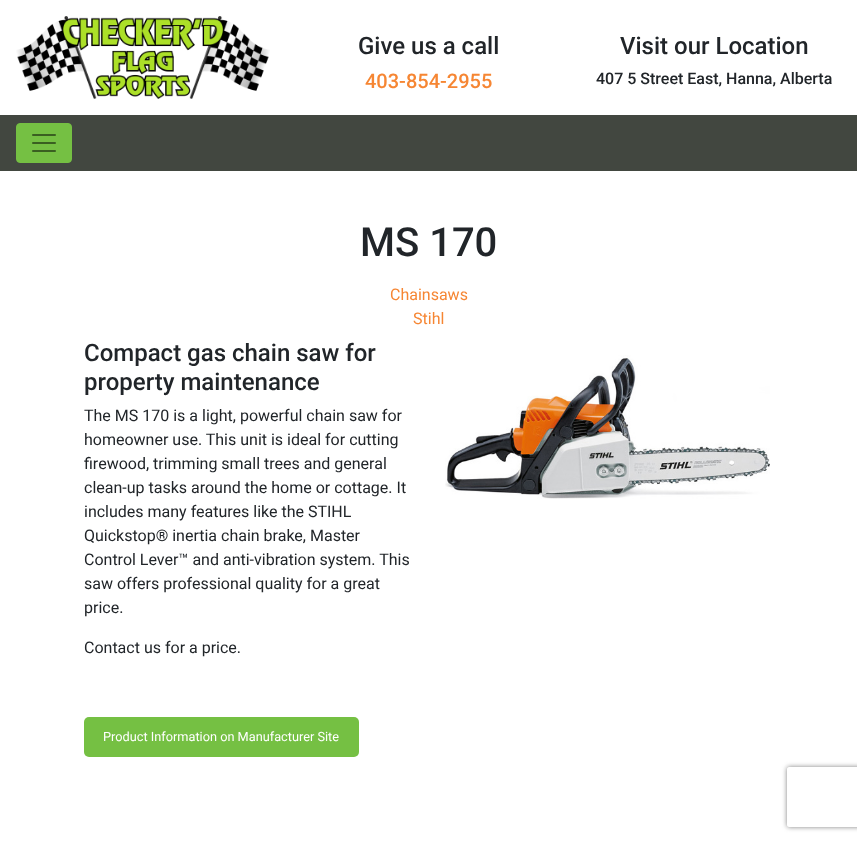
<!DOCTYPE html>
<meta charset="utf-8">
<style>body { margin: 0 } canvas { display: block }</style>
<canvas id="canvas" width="857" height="841"></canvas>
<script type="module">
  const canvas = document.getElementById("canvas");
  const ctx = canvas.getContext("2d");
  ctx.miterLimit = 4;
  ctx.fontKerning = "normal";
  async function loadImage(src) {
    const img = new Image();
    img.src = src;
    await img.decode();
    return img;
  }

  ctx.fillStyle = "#ffffff";
  ctx.fillRect(0, 0, 857, 841);
  ctx.drawImage(await loadImage("img1.png"), 16, 16, 254, 83);
  ctx.font = "500 24px Roboto";
  ctx.fillStyle = "#212529";
  ctx.fillText("Give us a call", 358, 54);
  ctx.font = "500 20px Roboto";
  ctx.fillStyle = "#f68633";
  ctx.fillText("403-854-2955", 365, 88);
  ctx.font = "500 24px Roboto";
  ctx.fillStyle = "#212529";
  ctx.fillText("Visit our Location", 620, 54);
  ctx.font = "500 16px Roboto";
  ctx.fillText("407 5 Street East, Hanna, Alberta", 596, 84);
  ctx.fillStyle = "#424740";
  ctx.fillRect(0, 115, 857, 56);
  ctx.fillStyle = "#75c043";
  ctx.beginPath();
  ctx.roundRect(16.5, 123.5, 55, 39, 3.5);
  ctx.fill();
  ctx.strokeStyle = "#75c043";
  ctx.stroke();
  ctx.drawImage(await loadImage("img2.png"), 32, 134, 24, 18);
  ctx.font = "500 40px Roboto";
  ctx.fillStyle = "#212529";
  ctx.fillText("MS 170", 360, 256);
  ctx.font = "16px Roboto";
  ctx.fillStyle = "#f68633";
  ctx.fillText("Chainsaws", 390, 300);
  ctx.fillText("Stihl", 413, 324);
  ctx.font = "500 24px Roboto";
  ctx.fillStyle = "#212529";
  ctx.fillText("Compact gas chain saw for", 84, 361);
  ctx.fillText("property maintenance", 84, 390);
  ctx.font = "16px Roboto";
  ctx.fillText("The MS 170 is a light, powerful chain saw for", 84, 421);
  ctx.fillText("homeowner use. This unit is ideal for cutting", 84, 445);
  ctx.fillText("firewood, trimming small trees and general", 84, 469);
  ctx.fillText("clean-up tasks around the home or cottage. It", 84, 493);
  ctx.fillText("includes many features like the STIHL", 84, 517);
  ctx.fillText("Quickstop® inertia chain brake, Master", 84, 541);
  ctx.fillText("Control Lever™ and anti-vibration system. This", 84, 565);
  ctx.fillText("saw offers professional quality for a great", 84, 589);
  ctx.fillText("price.", 84, 613);
  ctx.fillText("Contact us for a price.", 84, 653);
  ctx.fillStyle = "#75c043";
  ctx.beginPath();
  ctx.roundRect(84, 717, 275, 40, 5);
  ctx.fill();
  ctx.font = "12.75px Roboto";
  ctx.fillStyle = "#ffffff";
  ctx.fillText("Product Information on Manufacturer Site", 103, 741);
  ctx.drawImage(await loadImage("img3.png"), 445, 355, 325, 144);
  ctx.save();
  ctx.beginPath();
  ctx.moveTo(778, 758);
  ctx.lineTo(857, 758);
  ctx.lineTo(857, 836);
  ctx.lineTo(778, 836);
  ctx.closePath();
  ctx.moveTo(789, 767);
  ctx.lineTo(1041, 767);
  ctx.bezierCurveTo(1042, 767, 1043, 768, 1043, 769);
  ctx.lineTo(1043, 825);
  ctx.bezierCurveTo(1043, 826, 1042, 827, 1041, 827);
  ctx.lineTo(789, 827);
  ctx.bezierCurveTo(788, 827, 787, 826, 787, 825);
  ctx.lineTo(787, 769);
  ctx.bezierCurveTo(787, 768, 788, 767, 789, 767);
  ctx.closePath();
  ctx.clip("evenodd");
  ctx.fillStyle = "#808080";
  ctx.filter = "blur(2.5px)";
  ctx.beginPath();
  ctx.roundRect(787, 767, 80, 60, 2);
  ctx.fill();
  ctx.filter = "none";
  ctx.restore();
</script>
